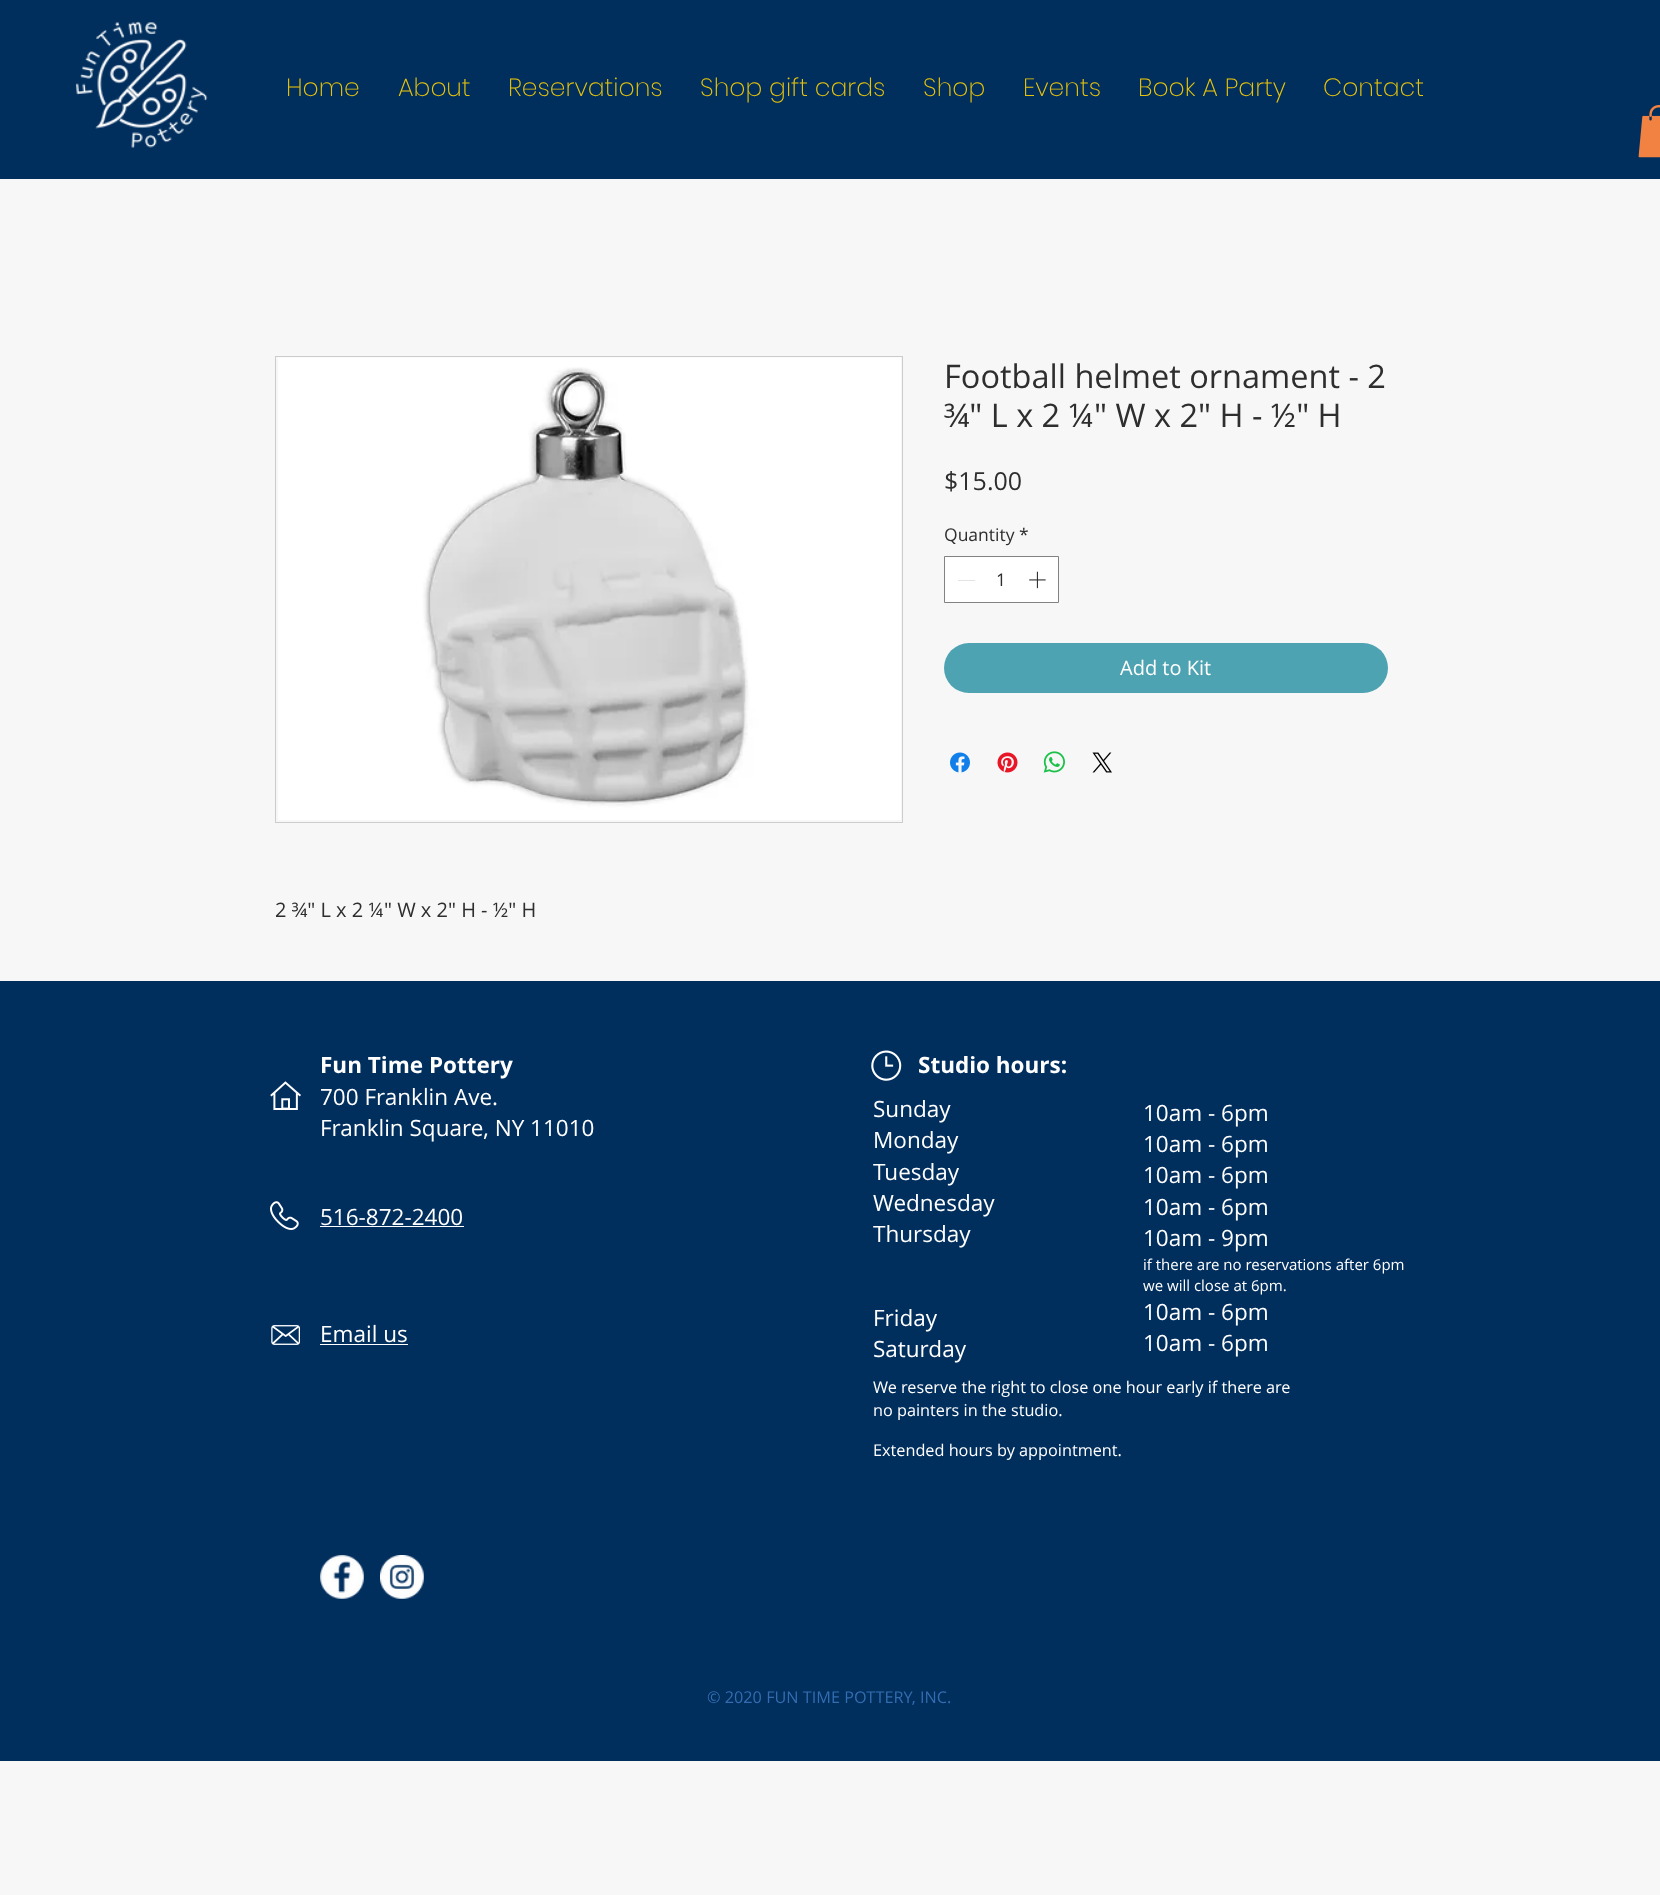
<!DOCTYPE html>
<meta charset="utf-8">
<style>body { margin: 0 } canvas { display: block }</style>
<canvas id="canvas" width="1660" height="1895"></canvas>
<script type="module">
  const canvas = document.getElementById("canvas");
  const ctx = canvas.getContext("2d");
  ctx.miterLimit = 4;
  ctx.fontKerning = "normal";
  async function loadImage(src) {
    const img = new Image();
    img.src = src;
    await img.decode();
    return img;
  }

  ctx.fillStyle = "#f7f7f7";
  ctx.fillRect(0, 0, 1660, 1895);
  ctx.fillStyle = "#002e5d";
  ctx.fillRect(0, 0, 1660, 179);
  ctx.drawImage(await loadImage("img1.png"), 75, 21, 133, 127);
  ctx.font = "200 25px Poppins";
  ctx.fillStyle = "#e7c30b";
  ctx.fillText("Home", 286, 96);
  ctx.fillText("About", 398, 96);
  ctx.fillText("Reservations", 508, 96);
  ctx.fillText("Shop gift cards", 700, 96);
  ctx.fillText("Shop", 923, 96);
  ctx.fillText("Events", 1023, 96);
  ctx.fillText("Book A Party", 1138, 96);
  ctx.fillText("Contact", 1323, 96);
  ctx.drawImage(await loadImage("img2.png"), 1638, 105, 22, 53);
  ctx.font = "32.5px Open Sans";
  ctx.fillStyle = "#2f2e2e";
  ctx.fillText("Football helmet ornament - 2", 944, 388);
  ctx.fillText("¾\" L x 2 ¼\" W x 2\" H - ½\" H", 944, 427);
  ctx.font = "25px Open Sans";
  ctx.fillText("$15.00", 944, 490);
  ctx.font = "17.5px Open Sans";
  ctx.fillText("Quantity", 944, 541);
  ctx.fillText("*", 1019, 541);
  ctx.fillStyle = "#ffffff";
  ctx.beginPath();
  ctx.rect(944.5, 556.5, 114, 46);
  ctx.fill();
  ctx.strokeStyle = "#828282";
  ctx.stroke();
  ctx.fillStyle = "#e3e3e3";
  ctx.fillRect(958, 580, 17, 1);
  ctx.fillStyle = "#2f2e2e";
  ctx.fillText("1", 996, 586);
  ctx.drawImage(await loadImage("img3.png"), 1029, 571, 17, 18);
  ctx.fillStyle = "#4ea3b2";
  ctx.beginPath();
  ctx.roundRect(944, 643, 444, 50, 25);
  ctx.fill();
  ctx.font = "20px Open Sans";
  ctx.fillStyle = "#ffffff";
  ctx.fillText("Add to Kit", 1120, 675);
  ctx.drawImage(await loadImage("img4.png"), 950, 752, 20, 21);
  ctx.drawImage(await loadImage("img5.png"), 997, 752, 21, 21);
  ctx.drawImage(await loadImage("img6.png"), 1043, 751, 22, 22);
  ctx.drawImage(await loadImage("img7.png"), 1092, 752, 20, 21);
  ctx.strokeStyle = "#cccccc";
  ctx.strokeRect(275.5, 356.5, 627, 466);
  ctx.drawImage(await loadImage("img8.png"), 278, 357, 623, 463);
  ctx.fillStyle = "#2f2e2e";
  ctx.fillText("2 ¾\" L x 2 ¼\" W x 2\" H - ½\" H", 275, 917);
  ctx.fillStyle = "#002e5d";
  ctx.fillRect(0, 981, 1660, 780);
  ctx.drawImage(await loadImage("img9.png"), 270, 1081, 31, 29);
  ctx.font = "bold 22.5px Open Sans";
  ctx.fillStyle = "#ffffff";
  ctx.fillText("Fun Time Pottery", 320, 1073);
  ctx.font = "22.5px Open Sans";
  ctx.fillText("700 Franklin Ave.", 320, 1105);
  ctx.fillText("Franklin Square, NY 11010", 320, 1136);
  ctx.drawImage(await loadImage("img10.png"), 270, 1201, 29, 29);
  ctx.fillText("516-872-2400", 320, 1225);
  ctx.fillRect(320, 1226, 144, 1);
  ctx.drawImage(await loadImage("img11.png"), 271, 1325, 29, 20);
  ctx.fillText("Email us", 320, 1342);
  ctx.fillRect(320, 1344, 88, 1);
  ctx.drawImage(await loadImage("img12.png"), 871, 1050, 31, 31);
  ctx.font = "bold 22.5px Open Sans";
  ctx.fillText("Studio hours:", 918, 1073);
  ctx.font = "22.5px Open Sans";
  ctx.fillText("Sunday", 873, 1117);
  ctx.fillText("Monday", 873, 1148);
  ctx.fillText("Tuesday", 873, 1180);
  ctx.fillText("Wednesday", 873, 1211);
  ctx.fillText("Thursday", 873, 1242);
  ctx.fillText("Friday", 873, 1326);
  ctx.fillText("Saturday", 873, 1357);
  ctx.font = "16.25px Open Sans";
  ctx.fillText("We reserve the right to close one hour early if there are", 873, 1393);
  ctx.fillText("no painters in the studio.", 873, 1416);
  ctx.fillText("Extended hours by appointment.", 873, 1456);
  ctx.font = "22.5px Open Sans";
  ctx.fillText("10am - 6pm", 1143, 1121);
  ctx.fillText("10am - 6pm", 1143, 1152);
  ctx.fillText("10am - 6pm", 1143, 1183);
  ctx.fillText("10am - 6pm", 1143, 1215);
  ctx.fillText("10am - 9pm", 1143, 1246);
  ctx.font = "15px Open Sans";
  ctx.fillText("if there are no reservations after 6pm", 1143, 1270);
  ctx.fillText("we will close at 6pm.", 1143, 1291);
  ctx.font = "22.5px Open Sans";
  ctx.fillText("10am - 6pm", 1143, 1320);
  ctx.fillText("10am - 6pm", 1143, 1351);
  ctx.drawImage(await loadImage("img13.png"), 320, 1555, 44, 44);
  ctx.drawImage(await loadImage("img14.png"), 380, 1555, 44, 44);
  ctx.font = "16.25px Open Sans";
  ctx.fillStyle = "#336db0";
  ctx.fillText("© 2020 FUN TIME POTTERY, INC.", 707, 1703);
</script>
